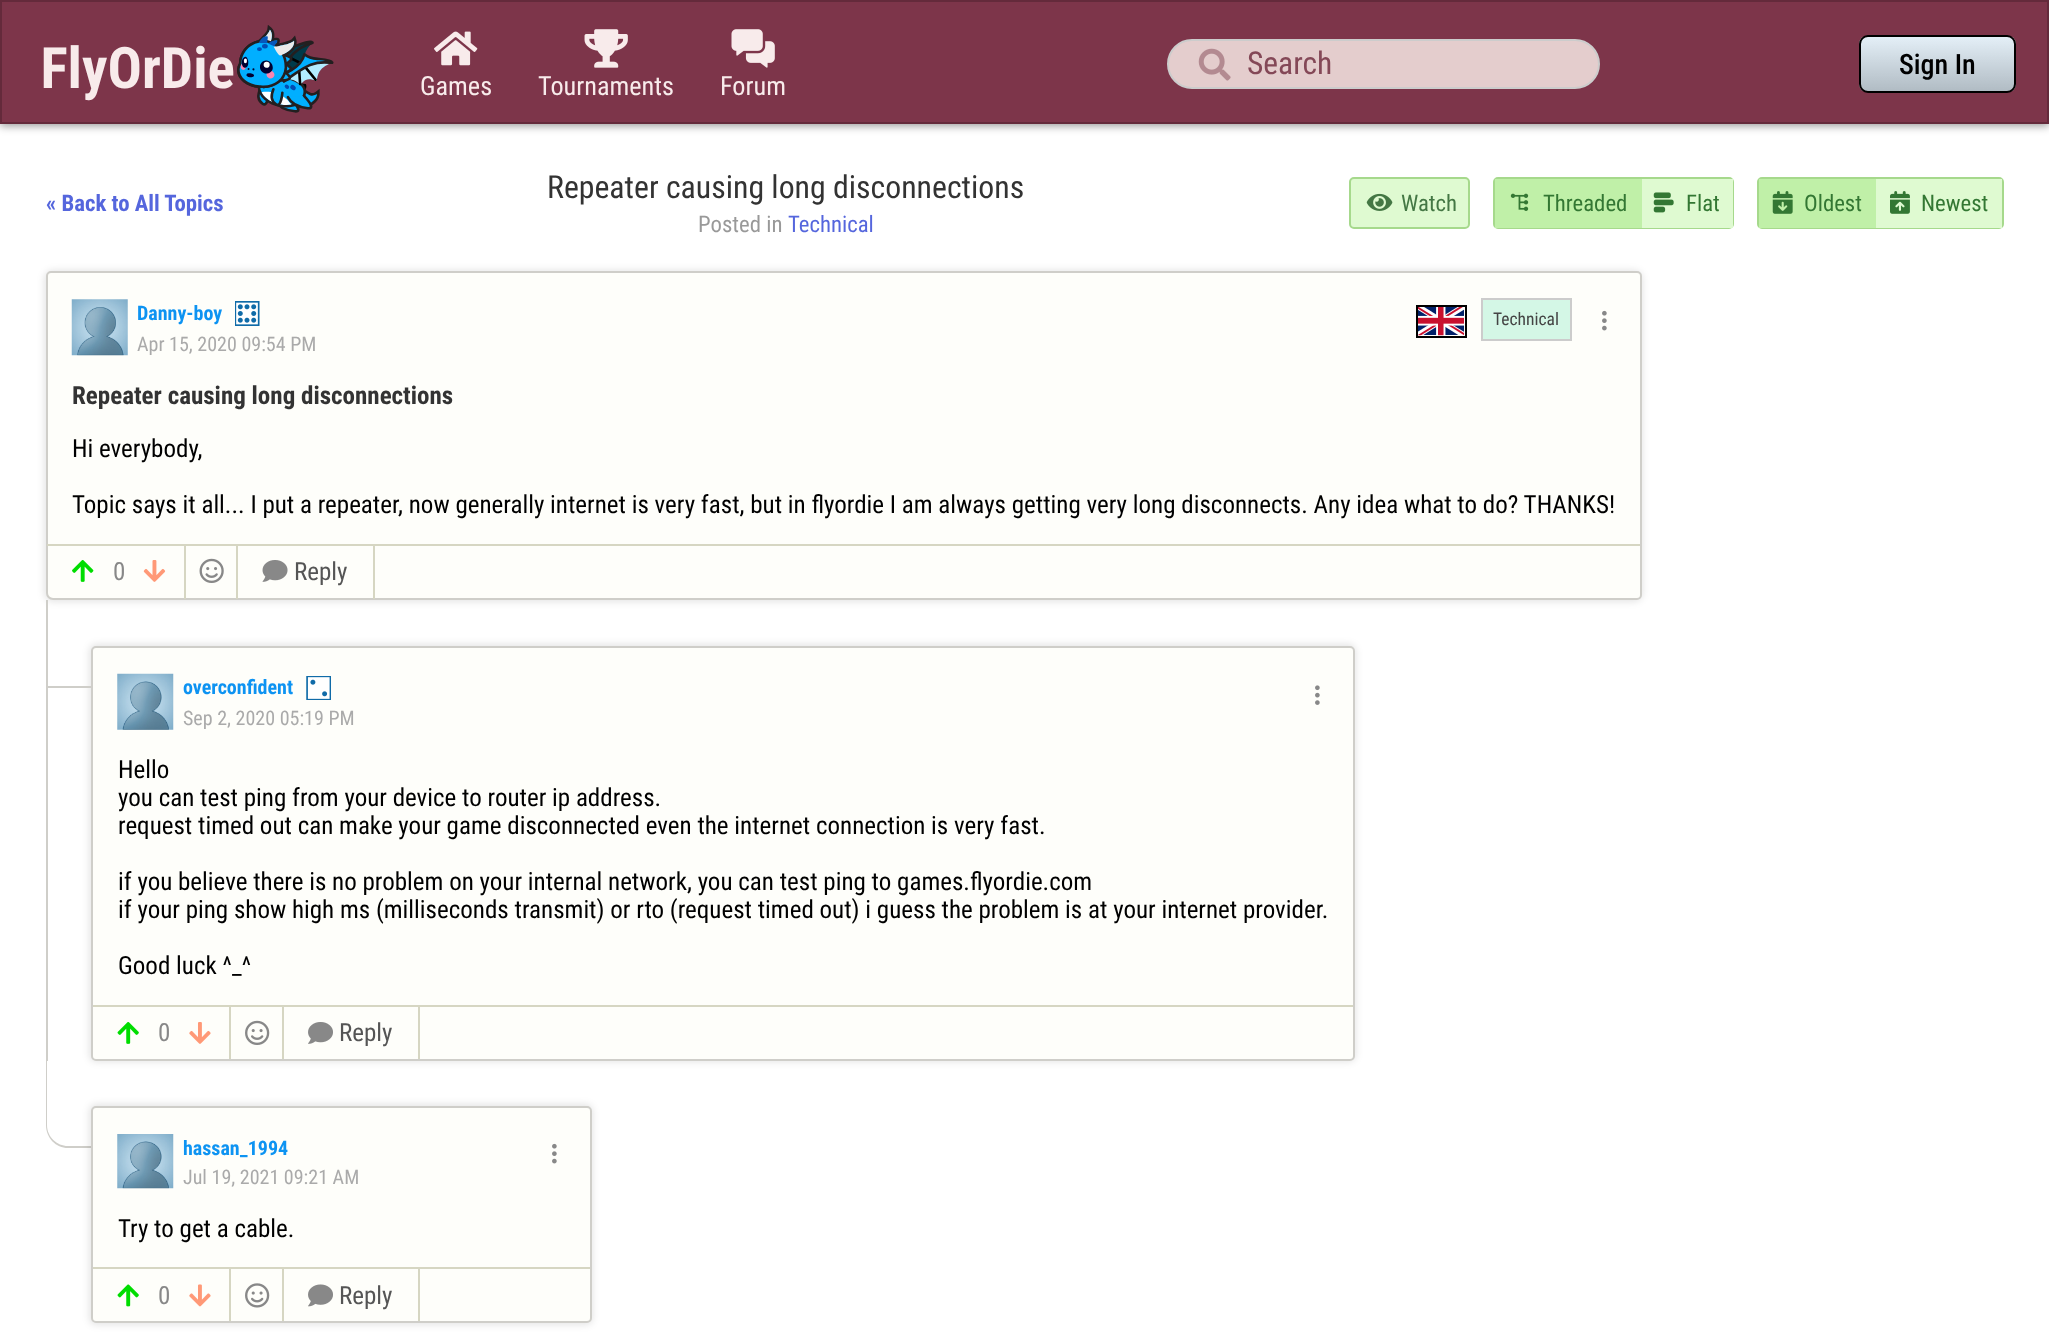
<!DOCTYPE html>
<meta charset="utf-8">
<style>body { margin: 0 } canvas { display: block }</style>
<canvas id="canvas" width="2049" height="1344"></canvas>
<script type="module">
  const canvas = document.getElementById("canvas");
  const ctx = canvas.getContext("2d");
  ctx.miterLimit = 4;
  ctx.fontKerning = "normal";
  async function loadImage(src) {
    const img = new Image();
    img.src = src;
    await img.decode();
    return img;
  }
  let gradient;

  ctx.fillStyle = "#ffffff";
  ctx.fillRect(0, 0, 2049, 1344);
  ctx.fillStyle = "rgba(0, 0, 0, 0.4)";
  ctx.filter = "blur(4.5px)";
  ctx.beginPath();
  ctx.rect(0, 2, 2049, 124);
  ctx.fill();
  ctx.filter = "none";
  ctx.fillStyle = "#7d354a";
  ctx.beginPath();
  ctx.rect(1, 1, 2047, 122);
  ctx.fill();
  ctx.strokeStyle = "#642a3b";
  ctx.lineWidth = 2;
  ctx.stroke();
  ctx.drawImage(await loadImage("img1.png"), 43, 25, 291, 88);
  ctx.fillStyle = "#e4cdcd";
  ctx.beginPath();
  ctx.roundRect(1168, 40, 431, 48, 24);
  ctx.fill();
  ctx.strokeStyle = "#cccccc";
  ctx.stroke();
  ctx.drawImage(await loadImage("img2.png"), 1198, 48, 33, 33);
  ctx.font = "31.5px Roboto Condensed";
  ctx.fillStyle = "#844857";
  ctx.fillText("Search", 1247, 74);
  ctx.save();
  ctx.beginPath();
  ctx.roundRect(1859, 35, 157, 58, 9);
  ctx.clip();
  gradient = ctx.createLinearGradient(1937, 37, 1937, 91);
  gradient.addColorStop(0, "#ffffff");
  gradient.addColorStop(1, "#bdbdbd");
  ctx.fillStyle = gradient;
  ctx.fillRect(1859, 37, 157, 54);
  ctx.restore();
  ctx.fillStyle = "rgba(138, 185, 219, 0.23)";
  ctx.beginPath();
  ctx.roundRect(1860, 36, 155, 56, 8);
  ctx.fill();
  ctx.strokeStyle = "#000000";
  ctx.stroke();
  ctx.font = "500 28px Roboto Condensed";
  ctx.fillStyle = "#000000";
  ctx.fillText("Sign In", 1899, 74);
  ctx.drawImage(await loadImage("img3.png"), 434, 31, 44, 35);
  ctx.font = "26.25px Roboto Condensed";
  ctx.fillStyle = "#f8ebeb";
  ctx.fillText("Games", 420, 95);
  ctx.drawImage(await loadImage("img4.png"), 584, 29, 44, 39);
  ctx.fillText("Tournaments", 538, 95);
  ctx.drawImage(await loadImage("img5.png"), 731, 29, 44, 39);
  ctx.fillText("Forum", 720, 95);
  ctx.font = "bold 22.75px Roboto Condensed";
  ctx.fillStyle = "#5566dd";
  ctx.fillText("« Back to All Topics", 46, 211);
  ctx.font = "31.8px Roboto Condensed";
  ctx.fillStyle = "#333333";
  ctx.fillText("Repeater causing long disconnections", 547, 198);
  ctx.font = "22.75px Roboto Condensed";
  ctx.fillStyle = "#999999";
  ctx.fillText("Posted in", 698, 232);
  ctx.fillStyle = "#5566dd";
  ctx.fillText("Technical", 788, 232);
  ctx.fillStyle = "#dffad1";
  ctx.beginPath();
  ctx.roundRect(1350, 178, 119, 50, 4);
  ctx.fill();
  ctx.strokeStyle = "#a6d98c";
  ctx.stroke();
  ctx.drawImage(await loadImage("img6.png"), 1366, 193, 27, 18);
  ctx.fillStyle = "#447744";
  ctx.fillText("Watch", 1401, 211);
  ctx.beginPath();
  ctx.roundRect(1494, 178, 239, 50, 4);
  ctx.stroke();
  ctx.fillStyle = "#c0f0a8";
  ctx.fillRect(1495, 179, 147, 49);
  ctx.drawImage(await loadImage("img7.png"), 1510, 193, 19, 18);
  ctx.fillStyle = "#337733";
  ctx.fillText("Threaded", 1543, 211);
  ctx.fillStyle = "#dffad1";
  ctx.fillRect(1642, 179, 91, 49);
  ctx.drawImage(await loadImage("img8.png"), 1653, 192, 21, 21);
  ctx.fillStyle = "#337733";
  ctx.fillText("Flat", 1686, 211);
  ctx.beginPath();
  ctx.roundRect(1758, 178, 245, 50, 4);
  ctx.stroke();
  ctx.fillStyle = "#c0f0a8";
  ctx.fillRect(1759, 179, 117, 49);
  ctx.drawImage(await loadImage("img9.png"), 1772, 191, 21, 23);
  ctx.fillStyle = "#337733";
  ctx.fillText("Oldest", 1804, 211);
  ctx.fillStyle = "#dffad1";
  ctx.fillRect(1876, 179, 126, 49);
  ctx.drawImage(await loadImage("img10.png"), 1890, 191, 20, 23);
  ctx.fillStyle = "#337733";
  ctx.fillText("Newest", 1921, 211);
  ctx.fillStyle = "rgba(0, 0, 0, 0.1)";
  ctx.filter = "blur(3.5px)";
  ctx.beginPath();
  ctx.roundRect(44, 270, 1599, 332, 9);
  ctx.fill();
  ctx.filter = "none";
  ctx.fillStyle = "#fefefa";
  ctx.beginPath();
  ctx.roundRect(47, 272, 1594, 327, [4, 4, 4, 6]);
  ctx.fill();
  ctx.strokeStyle = "#cfcec9";
  ctx.stroke();
  ctx.drawImage(await loadImage("img11.png"), 71, 299, 57, 57);
  ctx.font = "bold 20px Roboto Condensed";
  ctx.fillStyle = "#0d93f2";
  ctx.fillText("Danny-boy", 137, 320);
  ctx.drawImage(await loadImage("img12.png"), 235, 301, 25, 25);
  ctx.font = "20px Roboto Condensed";
  ctx.fillStyle = "#aaaaaa";
  ctx.fillText("Apr 15, 2020 09:54 PM", 137, 351);
  ctx.drawImage(await loadImage("img13.png"), 1418, 307, 47, 29);
  ctx.strokeStyle = "#000000";
  ctx.strokeRect(1417, 306, 49, 31);
  ctx.fillStyle = "#d4f7e6";
  ctx.beginPath();
  ctx.rect(1482, 299, 89, 41);
  ctx.fill();
  ctx.strokeStyle = "#cccccc";
  ctx.stroke();
  ctx.font = "17.5px Roboto Condensed";
  ctx.fillStyle = "#444444";
  ctx.fillText("Technical", 1493, 325);
  ctx.drawImage(await loadImage("img14.png"), 1602, 310, 5, 21);
  ctx.font = "bold 25.03px Roboto Condensed";
  ctx.fillStyle = "#333333";
  ctx.fillText("Repeater causing long disconnections", 72, 404);
  ctx.font = "25.03px Roboto Condensed";
  ctx.fillStyle = "#000000";
  ctx.fillText("Hi everybody,", 72, 457);
  ctx.fillText("Topic says it all... I put a repeater, now generally internet is very fast, but in flyordie I am always getting very long disconnects. Any idea what to do? THANKS!", 72, 513);
  ctx.fillStyle = "#d6d6c2";
  ctx.fillRect(47, 544, 1593, 2);
  ctx.drawImage(await loadImage("img15.png"), 72, 560, 22, 22);
  ctx.fillStyle = "#888888";
  ctx.fillText("0", 113, 580);
  ctx.drawImage(await loadImage("img16.png"), 143, 560, 23, 22);
  ctx.fillStyle = "#d6d6c2";
  ctx.fillRect(184, 546, 2, 53);
  ctx.drawImage(await loadImage("img17.png"), 199, 558, 25, 25);
  ctx.fillRect(373, 546, 2, 53);
  ctx.fillRect(236, 546, 2, 53);
  ctx.drawImage(await loadImage("img18.png"), 262, 560, 26, 22);
  ctx.fillStyle = "#555555";
  ctx.fillText("Reply", 294, 580);
  ctx.fillStyle = "#cfcec9";
  ctx.fillRect(46, 600, 2, 461);
  ctx.fillStyle = "rgba(0, 0, 0, 0.1)";
  ctx.filter = "blur(3.5px)";
  ctx.beginPath();
  ctx.roundRect(89, 644, 1267, 418, 7);
  ctx.fill();
  ctx.filter = "none";
  ctx.fillStyle = "#cfcec9";
  ctx.fillRect(46, 686, 45, 2);
  ctx.fillStyle = "#fefefa";
  ctx.beginPath();
  ctx.roundRect(92, 647, 1262, 413, 4);
  ctx.fill();
  ctx.strokeStyle = "#cfcec9";
  ctx.stroke();
  ctx.drawImage(await loadImage("img19.png"), 117, 673, 57, 57);
  ctx.font = "bold 20px Roboto Condensed";
  ctx.fillStyle = "#0d93f2";
  ctx.fillText("overconfident", 183, 694);
  ctx.drawImage(await loadImage("img20.png"), 306, 676, 25, 24);
  ctx.font = "20px Roboto Condensed";
  ctx.fillStyle = "#aaaaaa";
  ctx.fillText("Sep 2, 2020 05:19 PM", 183, 725);
  ctx.drawImage(await loadImage("img21.png"), 1315, 685, 5, 20);
  ctx.font = "25.03px Roboto Condensed";
  ctx.fillStyle = "#000000";
  ctx.fillText("Hello", 118, 778);
  ctx.fillText("you can test ping from your device to router ip address.", 118, 806);
  ctx.fillText("request timed out can make your game disconnected even the internet connection is very fast.", 118, 834);
  ctx.fillText("if you believe there is no problem on your internal network, you can test ping to games.flyordie.com", 118, 890);
  ctx.fillText("if your ping show high ms (milliseconds transmit) or rto (request timed out) i guess the problem is at your internet provider.", 118, 918);
  ctx.fillText("Good luck ^_^", 118, 974);
  ctx.fillStyle = "#d6d6c2";
  ctx.fillRect(93, 1005, 1260, 2);
  ctx.drawImage(await loadImage("img22.png"), 117, 1022, 22, 22);
  ctx.fillStyle = "#888888";
  ctx.fillText("0", 158, 1041);
  ctx.drawImage(await loadImage("img23.png"), 189, 1022, 22, 22);
  ctx.fillStyle = "#d6d6c2";
  ctx.fillRect(229, 1006, 2, 53);
  ctx.drawImage(await loadImage("img24.png"), 245, 1020, 25, 25);
  ctx.fillRect(418, 1006, 2, 53);
  ctx.fillRect(282, 1006, 2, 53);
  ctx.drawImage(await loadImage("img25.png"), 308, 1022, 25, 22);
  ctx.fillStyle = "#555555";
  ctx.fillText("Reply", 339, 1041);
  ctx.fillStyle = "#cfcec9";
  ctx.beginPath();
  ctx.moveTo(46, 1060);
  ctx.lineTo(91, 1060);
  ctx.lineTo(91, 1148);
  ctx.lineTo(68, 1148);
  ctx.bezierCurveTo(56, 1148, 46, 1138, 46, 1125);
  ctx.closePath();
  ctx.moveTo(47, 1060);
  ctx.lineTo(91, 1060);
  ctx.lineTo(91, 1146);
  ctx.lineTo(68, 1146);
  ctx.bezierCurveTo(57, 1146, 47, 1137, 47, 1125);
  ctx.closePath();
  ctx.fill("evenodd");
  ctx.fillStyle = "rgba(0, 0, 0, 0.1)";
  ctx.filter = "blur(3.5px)";
  ctx.beginPath();
  ctx.roundRect(89, 1104, 504, 221, 7);
  ctx.fill();
  ctx.filter = "none";
  ctx.fillStyle = "#fefefa";
  ctx.beginPath();
  ctx.roundRect(92, 1107, 499, 215, 4);
  ctx.fill();
  ctx.stroke();
  ctx.drawImage(await loadImage("img26.png"), 117, 1134, 57, 55);
  ctx.font = "bold 20px Roboto Condensed";
  ctx.fillStyle = "#0d93f2";
  ctx.fillText("hassan_1994", 183, 1155);
  ctx.font = "20px Roboto Condensed";
  ctx.fillStyle = "#aaaaaa";
  ctx.fillText("Jul 19, 2021 09:21 AM", 183, 1184);
  ctx.drawImage(await loadImage("img14.png"), 552, 1143, 5, 21);
  ctx.font = "25.03px Roboto Condensed";
  ctx.fillStyle = "#000000";
  ctx.fillText("Try to get a cable.", 118, 1237);
  ctx.fillStyle = "#d6d6c2";
  ctx.fillRect(93, 1267, 497, 2);
  ctx.drawImage(await loadImage("img27.png"), 117, 1284, 22, 23);
  ctx.fillStyle = "#888888";
  ctx.fillText("0", 158, 1304);
  ctx.drawImage(await loadImage("img28.png"), 189, 1284, 22, 23);
  ctx.fillStyle = "#d6d6c2";
  ctx.fillRect(229, 1269, 2, 52);
  ctx.drawImage(await loadImage("img29.png"), 245, 1283, 25, 25);
  ctx.fillRect(418, 1269, 2, 52);
  ctx.fillRect(282, 1269, 2, 52);
  ctx.drawImage(await loadImage("img30.png"), 308, 1284, 25, 23);
  ctx.fillStyle = "#555555";
  ctx.fillText("Reply", 339, 1304);
</script>
